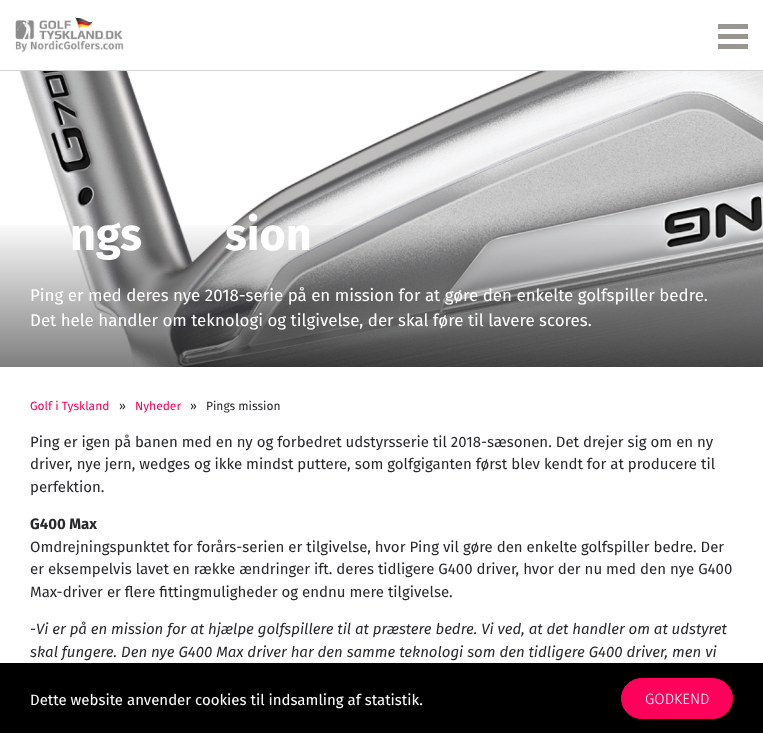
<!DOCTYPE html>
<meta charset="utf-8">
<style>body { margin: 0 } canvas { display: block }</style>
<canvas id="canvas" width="763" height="733"></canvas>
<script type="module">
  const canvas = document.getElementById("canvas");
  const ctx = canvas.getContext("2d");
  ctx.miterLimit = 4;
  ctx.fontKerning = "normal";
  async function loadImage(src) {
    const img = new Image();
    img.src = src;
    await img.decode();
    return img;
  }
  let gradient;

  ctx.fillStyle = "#ffffff";
  ctx.fillRect(0, 0, 763, 733);
  ctx.fillStyle = "#d1d3d4";
  ctx.fillRect(0, 70, 763, 1);
  ctx.drawImage(await loadImage("img1.png"), 15, 17, 109, 35);
  ctx.fillStyle = "#999591";
  ctx.fillRect(718, 24, 30, 5);
  ctx.fillRect(718, 34, 30, 5);
  ctx.fillRect(718, 44, 30, 5);
  ctx.drawImage(await loadImage("img2.png"), 19, 71, 744, 296);
  gradient = ctx.createLinearGradient(382, 219, 382, 367);
  gradient.addColorStop(0, "rgba(0, 0, 0, 0)");
  gradient.addColorStop(1, "rgba(0, 0, 0, 0.5)");
  ctx.fillStyle = gradient;
  ctx.fillRect(0, 225, 763, 142);
  ctx.font = "bold 45px Fira Sans";
  ctx.fillStyle = "#ffffff";
  ctx.fillText("ngs", 70, 250);
  ctx.fillText("sion", 225, 250);
  ctx.font = "16.9px Fira Sans";
  ctx.fillText("Ping er med deres nye 2018-serie på en mission for at gøre den enkelte golfspiller bedre.", 30, 301);
  ctx.fillText("Det hele handler om teknologi og tilgivelse, der skal føre til lavere scores.", 30, 326);
  ctx.font = "12px Fira Sans";
  ctx.fillStyle = "#ff005a";
  ctx.fillText("Golf i Tyskland", 30, 410);
  ctx.fillStyle = "#27282b";
  ctx.fillText("»", 119, 410);
  ctx.fillStyle = "#ff005a";
  ctx.fillText("Nyheder", 135, 410);
  ctx.fillStyle = "#27282b";
  ctx.fillText("»", 190, 410);
  ctx.fillText("Pings mission", 206, 410);
  ctx.font = "15px Fira Sans";
  ctx.fillText("Ping er igen på banen med en ny og forbedret udstyrsserie til 2018-sæsonen. Det drejer sig om en ny", 30, 447);
  ctx.fillText("driver, nye jern, wedges og ikke mindst puttere, som golfgiganten først blev kendt for at producere til", 30, 469);
  ctx.fillText("perfektion.", 30, 492);
  ctx.font = "bold 15px Fira Sans";
  ctx.fillText("G400 Max", 30, 529);
  ctx.font = "15px Fira Sans";
  ctx.fillText("Omdrejningspunktet for forårs-serien er tilgivelse, hvor Ping vil gøre den enkelte golfspiller bedre. Der", 30, 552);
  ctx.fillText("er eksempelvis lavet en række ændringer ift. deres tidligere G400 driver, hvor der nu med den nye G400", 30, 574);
  ctx.fillText("Max-driver er flere fittingmuligheder og endnu mere tilgivelse.", 30, 597);
  ctx.fillText("-", 30, 634);
  ctx.font = "italic 15px Fira Sans";
  ctx.fillText("Vi er på en mission for at hjælpe golfspillere til at præstere bedre. Vi ved, at det handler om at udstyret", 36, 634);
  ctx.fillText("skal fungere. Den nye G400 Max driver har den samme teknologi som den tidligere G400 driver, men vi", 30, 657);
  ctx.fillStyle = "#000000";
  ctx.fillRect(0, 663, 763, 70);
  ctx.font = "15px Fira Sans";
  ctx.fillStyle = "#ffffff";
  ctx.fillText("Dette website anvender cookies til indsamling af statistik.", 30, 705);
  ctx.fillStyle = "#ff005a";
  ctx.beginPath();
  ctx.roundRect(621.5, 678.5, 111, 40, 20);
  ctx.fill();
  ctx.strokeStyle = "#ff005a";
  ctx.stroke();
  ctx.font = "300 15px Fira Sans";
  ctx.fillStyle = "#ffffff";
  ctx.fillText("GODKEND", 645, 704);
</script>
